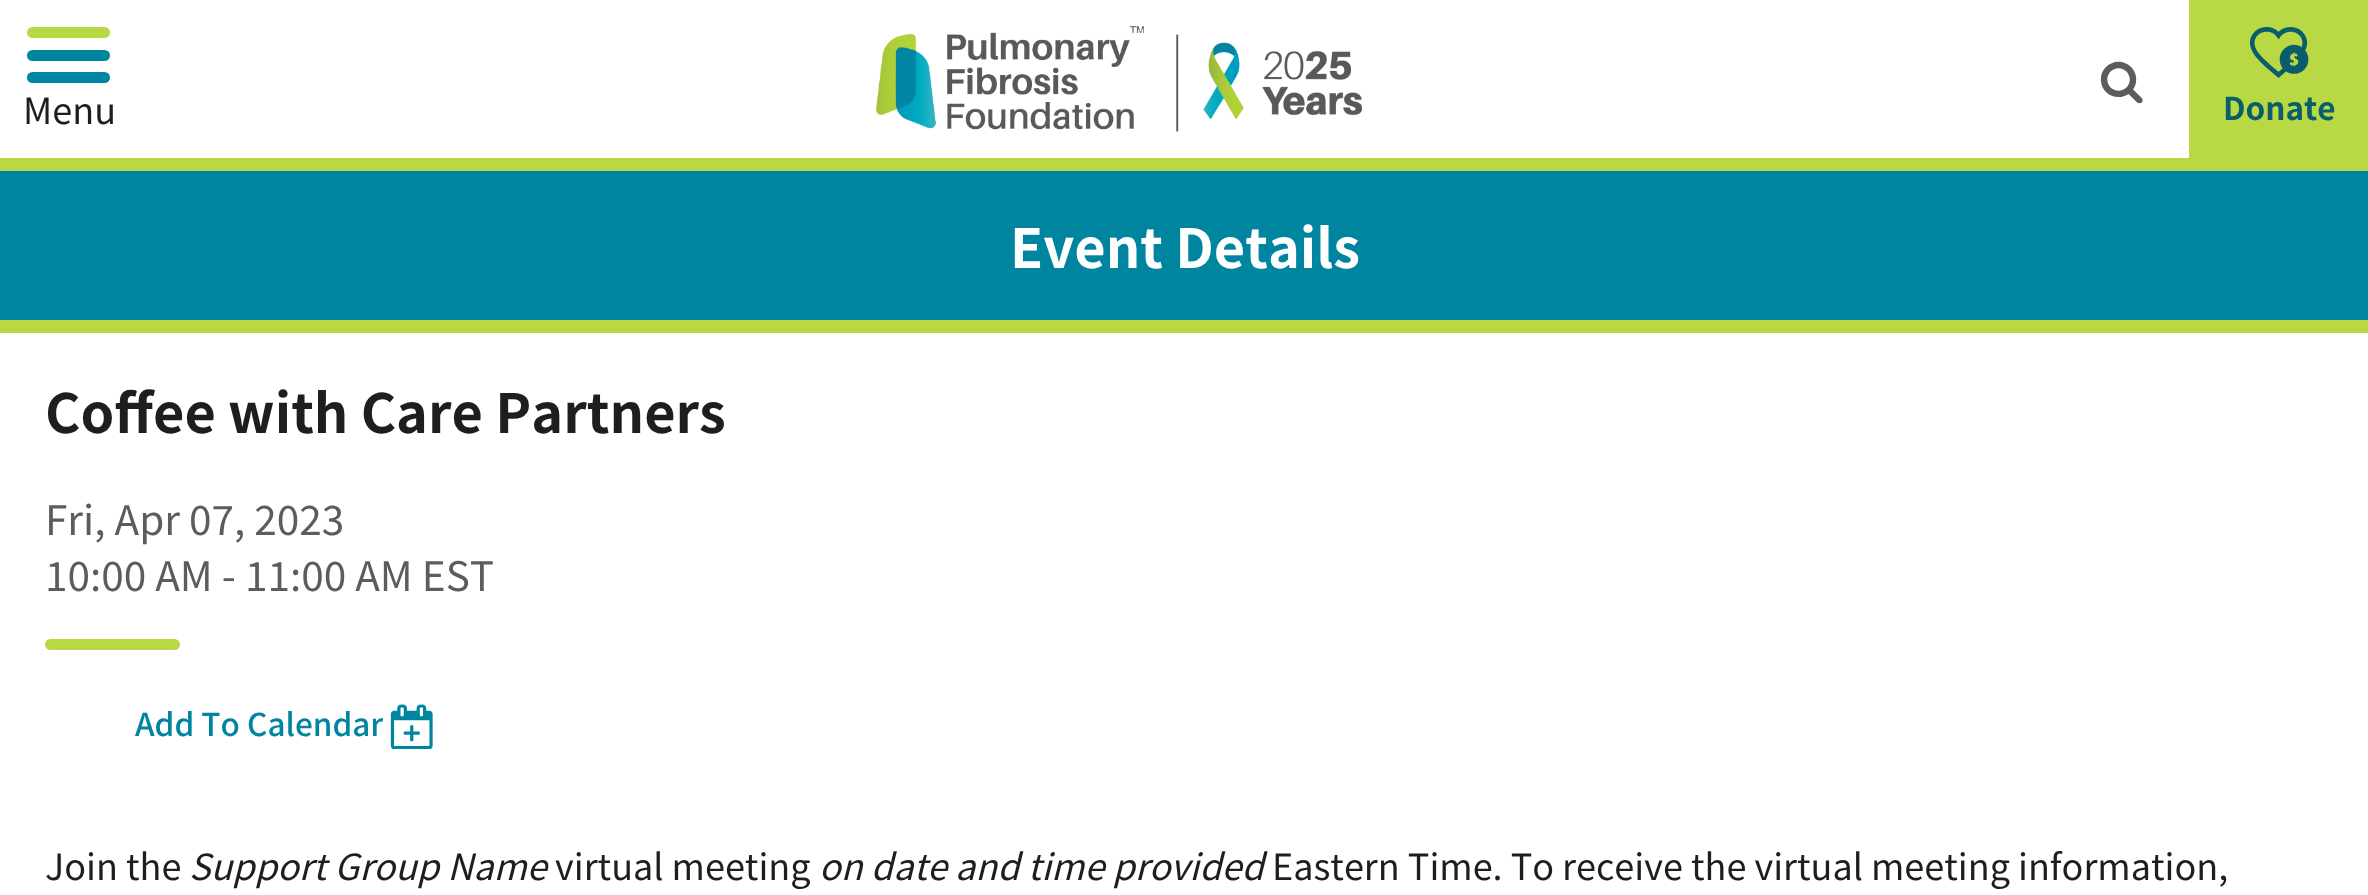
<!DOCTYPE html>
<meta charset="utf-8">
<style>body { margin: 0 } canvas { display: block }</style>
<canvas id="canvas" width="2368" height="895"></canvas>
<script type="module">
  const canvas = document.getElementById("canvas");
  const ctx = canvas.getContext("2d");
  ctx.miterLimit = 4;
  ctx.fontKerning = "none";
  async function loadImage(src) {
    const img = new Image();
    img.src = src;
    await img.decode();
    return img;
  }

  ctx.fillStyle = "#ffffff";
  ctx.fillRect(0, 0, 2368, 895);
  ctx.fillStyle = "#b9d944";
  ctx.fillRect(0, 158, 2368, 13);
  ctx.fillStyle = "#0085a1";
  ctx.beginPath();
  ctx.roundRect(27, 72, 83, 11, 5.5);
  ctx.fill();
  ctx.fillStyle = "#b9d944";
  ctx.beginPath();
  ctx.roundRect(27, 27, 83, 11, 5.5);
  ctx.fill();
  ctx.fillStyle = "#0085a1";
  ctx.beginPath();
  ctx.roundRect(27, 50, 83, 11, 5.5);
  ctx.fill();
  ctx.font = "36px Noto Sans JP";
  ctx.fillStyle = "#1e1e1e";
  ctx.fillText("Menu", 23, 124);
  ctx.drawImage(await loadImage("img1.png"), 876, 26, 487, 106);
  ctx.drawImage(await loadImage("img2.png"), 2100, 61, 43, 43);
  ctx.fillStyle = "#b9d944";
  ctx.fillRect(2189, 0, 179, 158);
  ctx.drawImage(await loadImage("img3.png"), 2250, 27, 59, 51);
  ctx.font = "bold 31.5px Noto Sans JP";
  ctx.fillStyle = "#0a5d6c";
  ctx.fillText("Donate", 2223, 120);
  ctx.fillStyle = "#0085a1";
  ctx.fillRect(0, 171, 2368, 149);
  ctx.fillStyle = "#b9d944";
  ctx.fillRect(0, 320, 2368, 13);
  ctx.font = "bold 54px Noto Sans JP";
  ctx.fillStyle = "#ffffff";
  ctx.fillText("Event Details", 1010, 268);
  ctx.fillStyle = "#1e1e1e";
  ctx.fillText("Coffee with Care Partners", 45, 433);
  ctx.font = "40.5px Noto Sans JP";
  ctx.fillStyle = "#5c5c5f";
  ctx.fillText("Fri, Apr 07, 2023", 45, 535);
  ctx.fillText("10:00 AM - 11:00 AM EST", 45, 591);
  ctx.fillStyle = "#b9d944";
  ctx.beginPath();
  ctx.roundRect(45, 639, 135, 11, 5.5);
  ctx.fill();
  ctx.font = "500 31.5px Noto Sans JP";
  ctx.fillStyle = "#0085a1";
  ctx.fillText("Add To Calendar", 135, 736);
  ctx.drawImage(await loadImage("img4.png"), 390, 704, 43, 45);
  ctx.font = "36px Noto Sans JP";
  ctx.fillStyle = "#1e1e1e";
  ctx.fillText("Join the", 45, 880);
  ctx.font = "italic 36px Noto Sans JP";
  ctx.fillText("Support Group Name", 189, 880);
  ctx.font = "36px Noto Sans JP";
  ctx.fillText("virtual meeting", 555, 880);
  ctx.font = "italic 36px Noto Sans JP";
  ctx.fillText("on date and time provided", 819, 880);
  ctx.font = "36px Noto Sans JP";
  ctx.fillText("Eastern Time. To receive the virtual meeting", 1272, 880);
  ctx.fillText("information,", 2018, 880);
</script>
